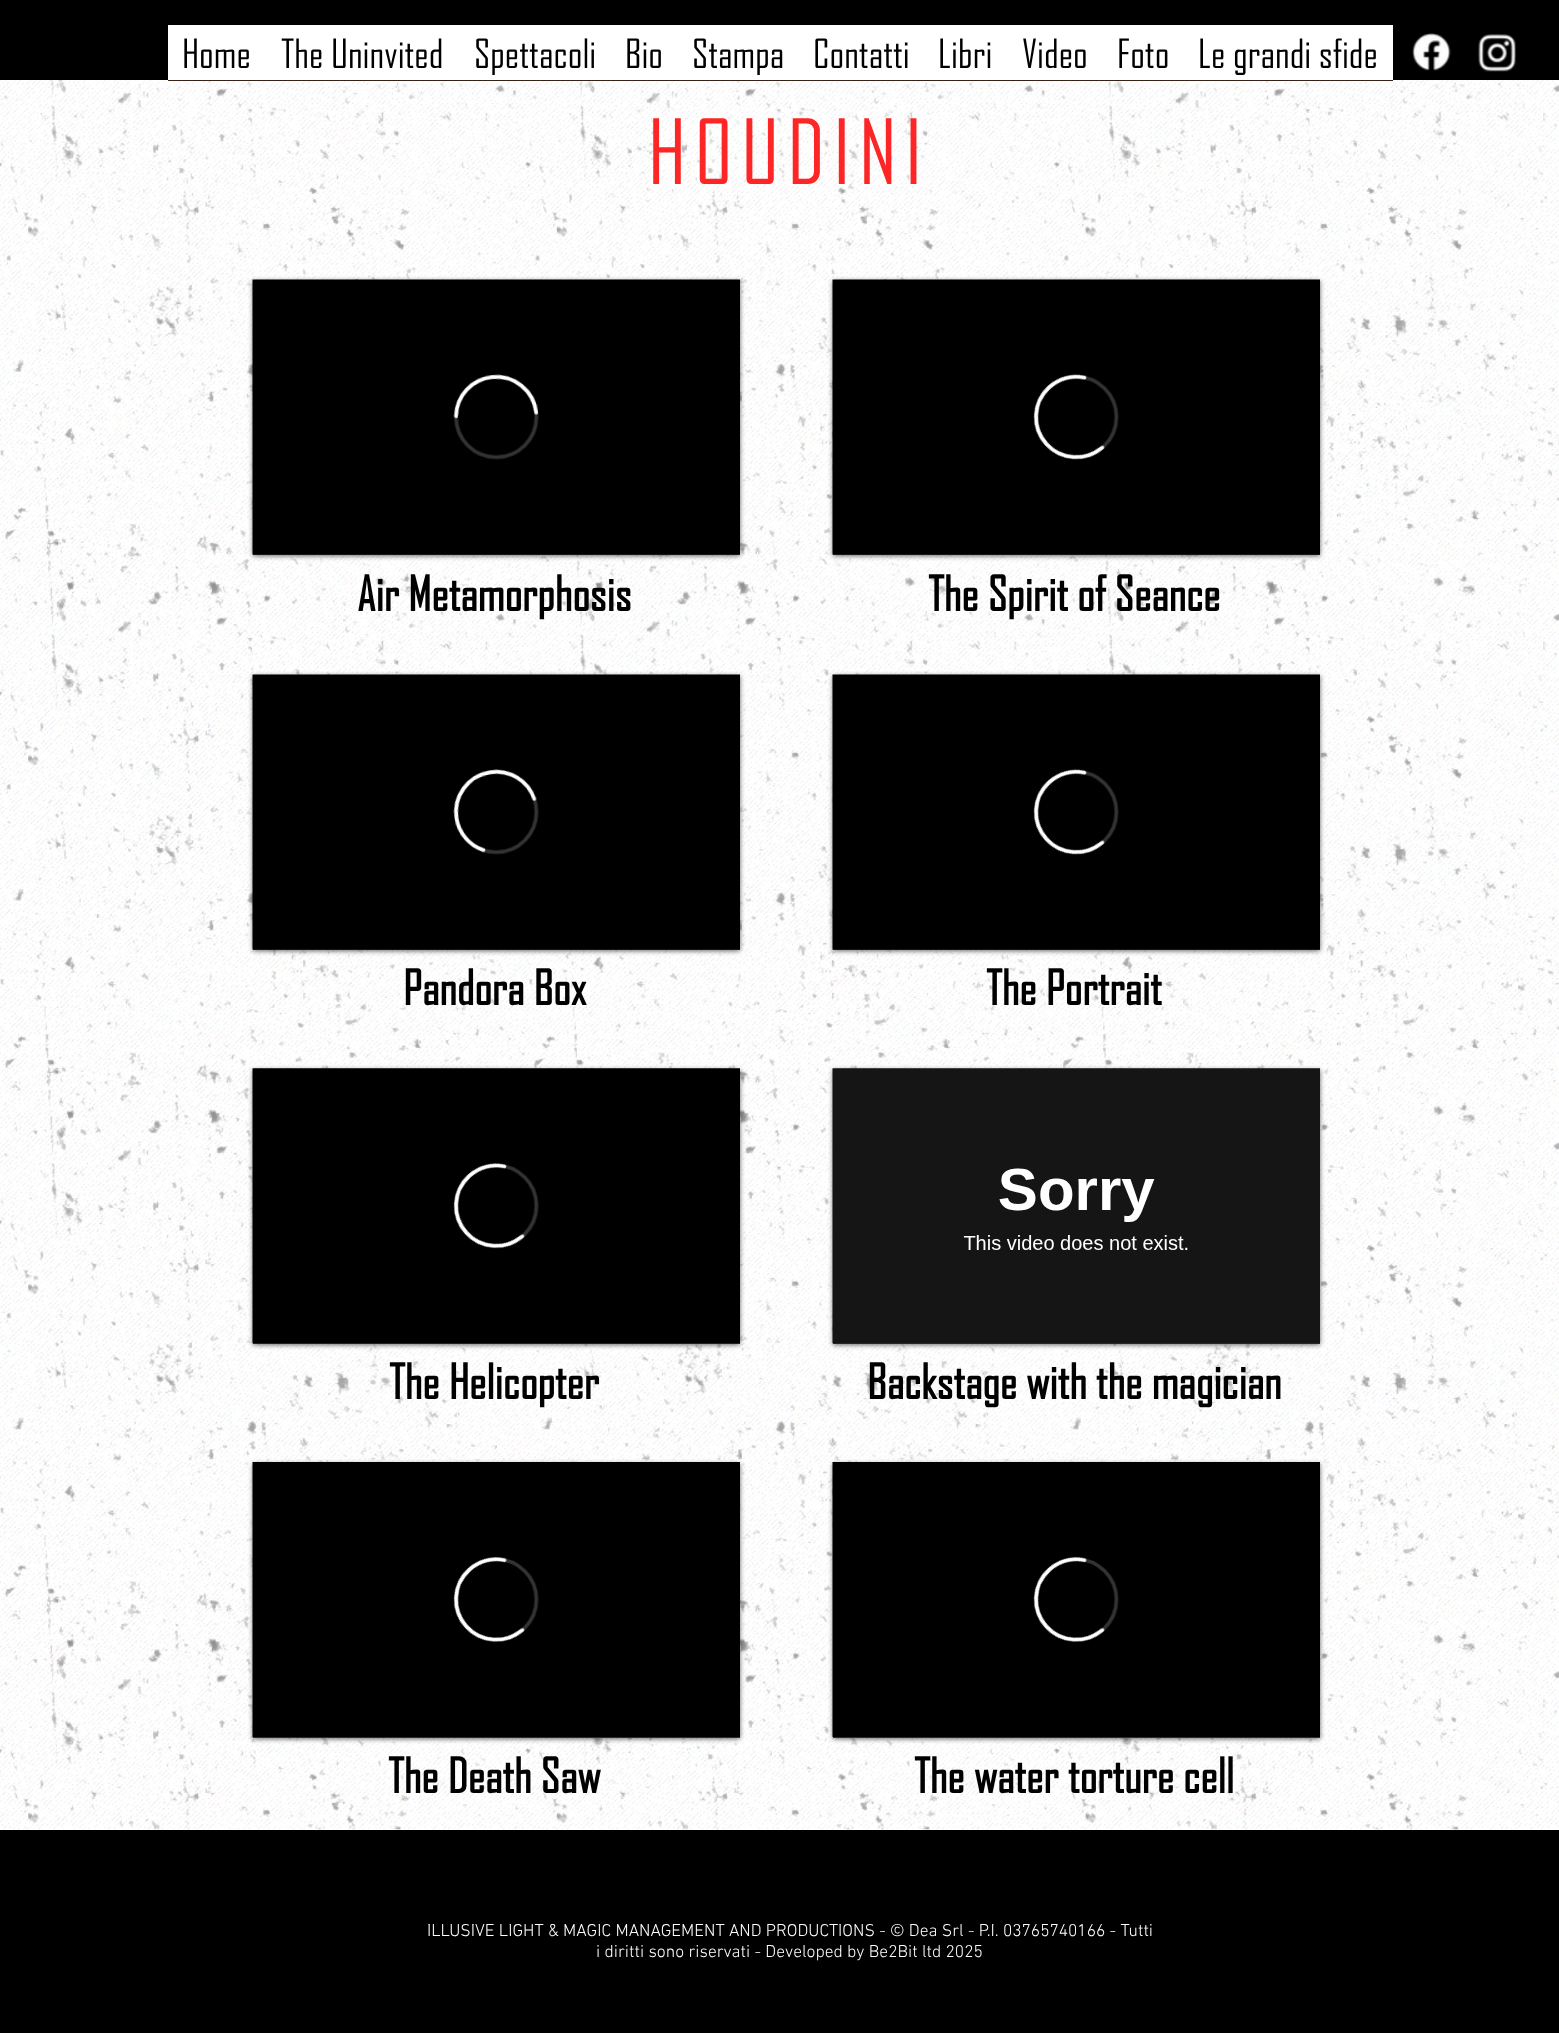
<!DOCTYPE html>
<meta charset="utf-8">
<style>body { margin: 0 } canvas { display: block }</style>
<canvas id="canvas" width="1559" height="2033"></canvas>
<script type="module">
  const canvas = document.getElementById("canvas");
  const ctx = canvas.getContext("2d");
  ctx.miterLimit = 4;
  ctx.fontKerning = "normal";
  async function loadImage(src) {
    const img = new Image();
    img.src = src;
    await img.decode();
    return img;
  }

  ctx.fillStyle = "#ffffff";
  ctx.fillRect(0, 0, 1559, 2033);
  ctx.fillStyle = "#000000";
  ctx.fillRect(0, 0, 1559, 80);
  ctx.fillStyle = "#ffffff";
  ctx.fillRect(168, 25, 1225, 55);
  ctx.drawImage(await loadImage("img3.png"), 0, 80, 1559, 1750);
  ctx.fillStyle = "#342216";
  ctx.fillRect(168, 80, 1225, 1);
  ctx.font = "38.75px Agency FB";
  ctx.fillStyle = "#000000";
  ctx.fillText("Home", 182, 68);
  ctx.fillText("The Uninvited", 281, 68);
  ctx.fillText("Spettacoli", 474, 68);
  ctx.fillText("Bio", 625, 68);
  ctx.fillText("Stampa", 692, 68);
  ctx.fillText("Contatti", 813, 68);
  ctx.fillText("Libri", 938, 68);
  ctx.fillText("Video", 1022, 68);
  ctx.fillText("Foto", 1117, 68);
  ctx.fillText("Le grandi sfide", 1198, 68);
  ctx.drawImage(await loadImage("img1.png"), 1412, 33, 39, 38);
  ctx.drawImage(await loadImage("img2.png"), 1478, 34, 38, 38);
  ctx.letterSpacing = "8.5px";
  ctx.font = "86px Agency FB";
  ctx.fillStyle = "#fc2626";
  ctx.fillText("HOUDINI", 648, 184);
  ctx.fillStyle = "rgba(0, 0, 0, 0.6)";
  ctx.filter = "blur(2.5px)";
  ctx.beginPath();
  ctx.rect(253, 281, 487, 275);
  ctx.fill();
  ctx.filter = "none";
  ctx.fillStyle = "#2f2e2e";
  ctx.fillRect(253, 554, 487, 1);
  ctx.drawImage(await loadImage("img4.png"), 252, 279, 488, 276);
  ctx.letterSpacing = "0px";
  ctx.font = "bold 46.25px Agency FB";
  ctx.fillStyle = "#000000";
  ctx.fillText("Air Metamorphosis", 357, 611);
  ctx.fillStyle = "rgba(0, 0, 0, 0.6)";
  ctx.filter = "blur(2.5px)";
  ctx.beginPath();
  ctx.rect(253, 676, 487, 275);
  ctx.fill();
  ctx.filter = "none";
  ctx.fillStyle = "#2f2e2e";
  ctx.fillRect(253, 949, 487, 1);
  ctx.drawImage(await loadImage("img5.png"), 252, 674, 488, 276);
  ctx.fillStyle = "#000000";
  ctx.fillText("Pandora Box", 403, 1005);
  ctx.fillStyle = "rgba(0, 0, 0, 0.6)";
  ctx.filter = "blur(2.5px)";
  ctx.beginPath();
  ctx.rect(253, 1070, 487, 275);
  ctx.fill();
  ctx.filter = "none";
  ctx.fillStyle = "#2f2e2e";
  ctx.fillRect(253, 1343, 487, 1);
  ctx.drawImage(await loadImage("img6.png"), 252, 1068, 488, 276);
  ctx.fillStyle = "#000000";
  ctx.fillText("The Helicopter", 389, 1399);
  ctx.fillStyle = "rgba(0, 0, 0, 0.6)";
  ctx.filter = "blur(2.5px)";
  ctx.beginPath();
  ctx.rect(253, 1464, 487, 275);
  ctx.fill();
  ctx.filter = "none";
  ctx.fillStyle = "#2f2e2e";
  ctx.fillRect(253, 1737, 487, 1);
  ctx.drawImage(await loadImage("img7.png"), 252, 1462, 488, 275);
  ctx.fillStyle = "#000000";
  ctx.fillText("The Death Saw", 388, 1793);
  ctx.fillStyle = "rgba(0, 0, 0, 0.6)";
  ctx.filter = "blur(2.5px)";
  ctx.beginPath();
  ctx.rect(833, 281, 487, 275);
  ctx.fill();
  ctx.filter = "none";
  ctx.fillStyle = "#2f2e2e";
  ctx.fillRect(833, 554, 487, 1);
  ctx.drawImage(await loadImage("img8.png"), 832, 279, 488, 276);
  ctx.fillStyle = "#000000";
  ctx.fillText("The Spirit of Seance", 928, 611);
  ctx.fillStyle = "rgba(0, 0, 0, 0.6)";
  ctx.filter = "blur(2.5px)";
  ctx.beginPath();
  ctx.rect(833, 676, 487, 275);
  ctx.fill();
  ctx.filter = "none";
  ctx.fillStyle = "#2f2e2e";
  ctx.fillRect(833, 949, 487, 1);
  ctx.drawImage(await loadImage("img9.png"), 832, 674, 488, 276);
  ctx.fillStyle = "#000000";
  ctx.fillText("The Portrait", 986, 1005);
  ctx.fillStyle = "rgba(0, 0, 0, 0.6)";
  ctx.filter = "blur(2.5px)";
  ctx.beginPath();
  ctx.rect(833, 1070, 487, 275);
  ctx.fill();
  ctx.filter = "none";
  ctx.fillStyle = "#2f2e2e";
  ctx.fillRect(833, 1343, 487, 1);
  ctx.drawImage(await loadImage("img10.png"), 832, 1068, 488, 276);
  ctx.fillStyle = "#000000";
  ctx.fillText("Backstage with the magician", 867, 1399);
  ctx.fillStyle = "rgba(0, 0, 0, 0.6)";
  ctx.filter = "blur(2.5px)";
  ctx.beginPath();
  ctx.rect(833, 1464, 487, 275);
  ctx.fill();
  ctx.filter = "none";
  ctx.fillStyle = "#2f2e2e";
  ctx.fillRect(833, 1737, 487, 1);
  ctx.drawImage(await loadImage("img11.png"), 832, 1462, 488, 275);
  ctx.fillStyle = "#000000";
  ctx.fillText("The water torture cell", 914, 1793);
  ctx.fillRect(0, 1830, 1559, 203);
  ctx.font = "300 17.5px 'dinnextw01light'";
  ctx.fillStyle = "#ffffff";
  ctx.fillText("ILLUSIVE LIGHT & MAGIC MANAGEMENT AND PRODUCTIONS - © Dea Srl - P.I. 03765740166 - Tutti", 427, 1936);
  ctx.fillText("i diritti sono riservati - Developed by Be2Bit ltd 2025", 596, 1957);
</script>
